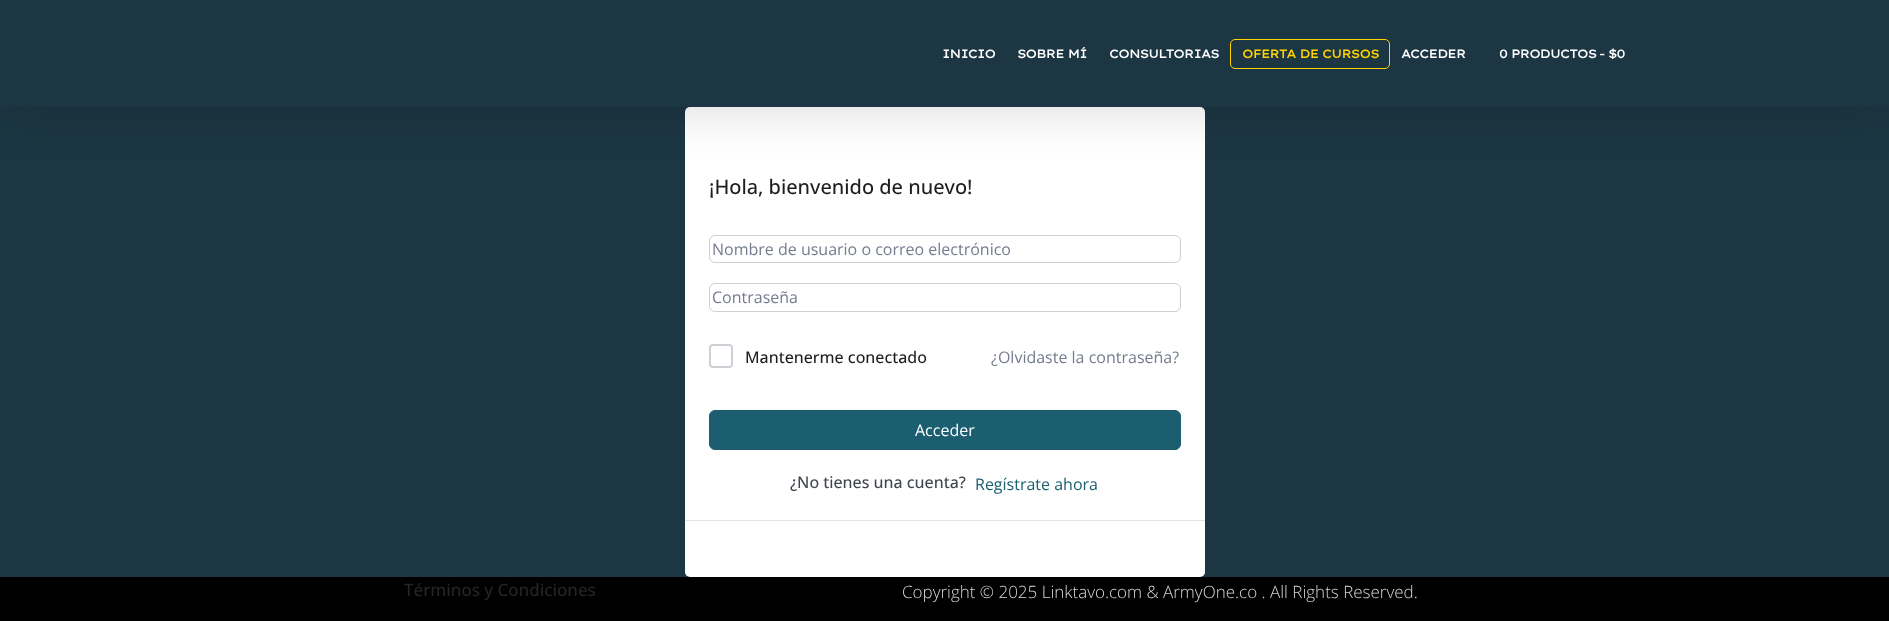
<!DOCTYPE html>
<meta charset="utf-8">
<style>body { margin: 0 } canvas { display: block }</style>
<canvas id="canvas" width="1889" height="621"></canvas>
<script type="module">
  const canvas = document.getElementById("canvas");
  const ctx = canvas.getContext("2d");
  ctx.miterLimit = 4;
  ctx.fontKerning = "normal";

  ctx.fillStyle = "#1c3643";
  ctx.fillRect(0, 0, 1889, 621);
  ctx.fillStyle = "#ffffff";
  ctx.beginPath();
  ctx.roundRect(685, 107, 520, 470, 5);
  ctx.fill();
  ctx.fillStyle = "rgba(0, 0, 0, 0.15)";
  ctx.filter = "blur(25px)";
  ctx.beginPath();
  ctx.rect(0, 2, 1889, 107);
  ctx.fill();
  ctx.filter = "none";
  ctx.fillStyle = "#1c3643";
  ctx.fillRect(0, 0, 1889, 107);
  ctx.letterSpacing = "-1px";
  ctx.font = "500 12px Lexend Giga";
  ctx.fillStyle = "#ffffff";
  ctx.fillText("INICIO", 942, 58);
  ctx.fillText("SOBRE MÍ", 1017, 58);
  ctx.fillText("CONSULTORIAS", 1109, 58);
  ctx.beginPath();
  ctx.roundRect(1230.5, 39.5, 159, 29, 4.5);
  ctx.strokeStyle = "#ffd400";
  ctx.stroke();
  ctx.fillStyle = "#ffd400";
  ctx.fillText("OFERTA DE CURSOS", 1242, 58);
  ctx.fillStyle = "#ffffff";
  ctx.fillText("ACCEDER", 1401, 58);
  ctx.fillText("0 PRODUCTOS", 1499, 58);
  ctx.fillText("-", 1599, 58);
  ctx.fillText("$0", 1608, 58);
  ctx.letterSpacing = "0px";
  ctx.font = "500 20px Open Sans";
  ctx.fillStyle = "#1d1e20";
  ctx.fillText("¡Hola, bienvenido de nuevo!", 709, 194);
  ctx.beginPath();
  ctx.roundRect(709.5, 235.5, 471, 27, 5.5);
  ctx.strokeStyle = "#cdcfd5";
  ctx.stroke();
  ctx.font = "16px Open Sans";
  ctx.fillStyle = "#757c8e";
  ctx.fillText("Nombre de usuario o correo electrónico", 712, 255);
  ctx.beginPath();
  ctx.roundRect(709.5, 283.5, 471, 28, 5.5);
  ctx.stroke();
  ctx.fillText("Contraseña", 712, 303);
  ctx.beginPath();
  ctx.roundRect(710, 345, 22, 22, 3);
  ctx.lineWidth = 2;
  ctx.stroke();
  ctx.font = "500 16px Open Sans";
  ctx.fillStyle = "#1d1e20";
  ctx.fillText("Mantenerme conectado", 745, 363);
  ctx.font = "16px Open Sans";
  ctx.fillStyle = "#757c8e";
  ctx.fillText("¿Olvidaste la contraseña?", 991, 363);
  ctx.fillStyle = "#1a5e70";
  ctx.beginPath();
  ctx.roundRect(709.5, 410.5, 471, 39, 5.5);
  ctx.fill();
  ctx.strokeStyle = "#1a5e70";
  ctx.lineWidth = 1;
  ctx.stroke();
  ctx.fillStyle = "#ffffff";
  ctx.fillText("Acceder", 915, 436);
  ctx.font = "500 16px Open Sans";
  ctx.fillStyle = "#41454f";
  ctx.fillText("¿No tienes una cuenta?", 790, 488);
  ctx.font = "16px Open Sans";
  ctx.fillStyle = "#1a5e70";
  ctx.fillText("Regístrate ahora", 975, 490);
  ctx.fillStyle = "#e0e2ea";
  ctx.fillRect(685, 520, 520, 1);
  ctx.fillStyle = "#000000";
  ctx.fillRect(0, 577, 1889, 44);
  ctx.font = "500 17px Open Sans";
  ctx.fillStyle = "#242526";
  ctx.fillText("Términos y Condiciones", 404, 596);
  ctx.font = "300 17px Open Sans";
  ctx.fillStyle = "#d6d6d6";
  ctx.fillText("Copyright © 2025 Linktavo.com & ArmyOne.co . All Rights Reserved.", 902, 598);
</script>
